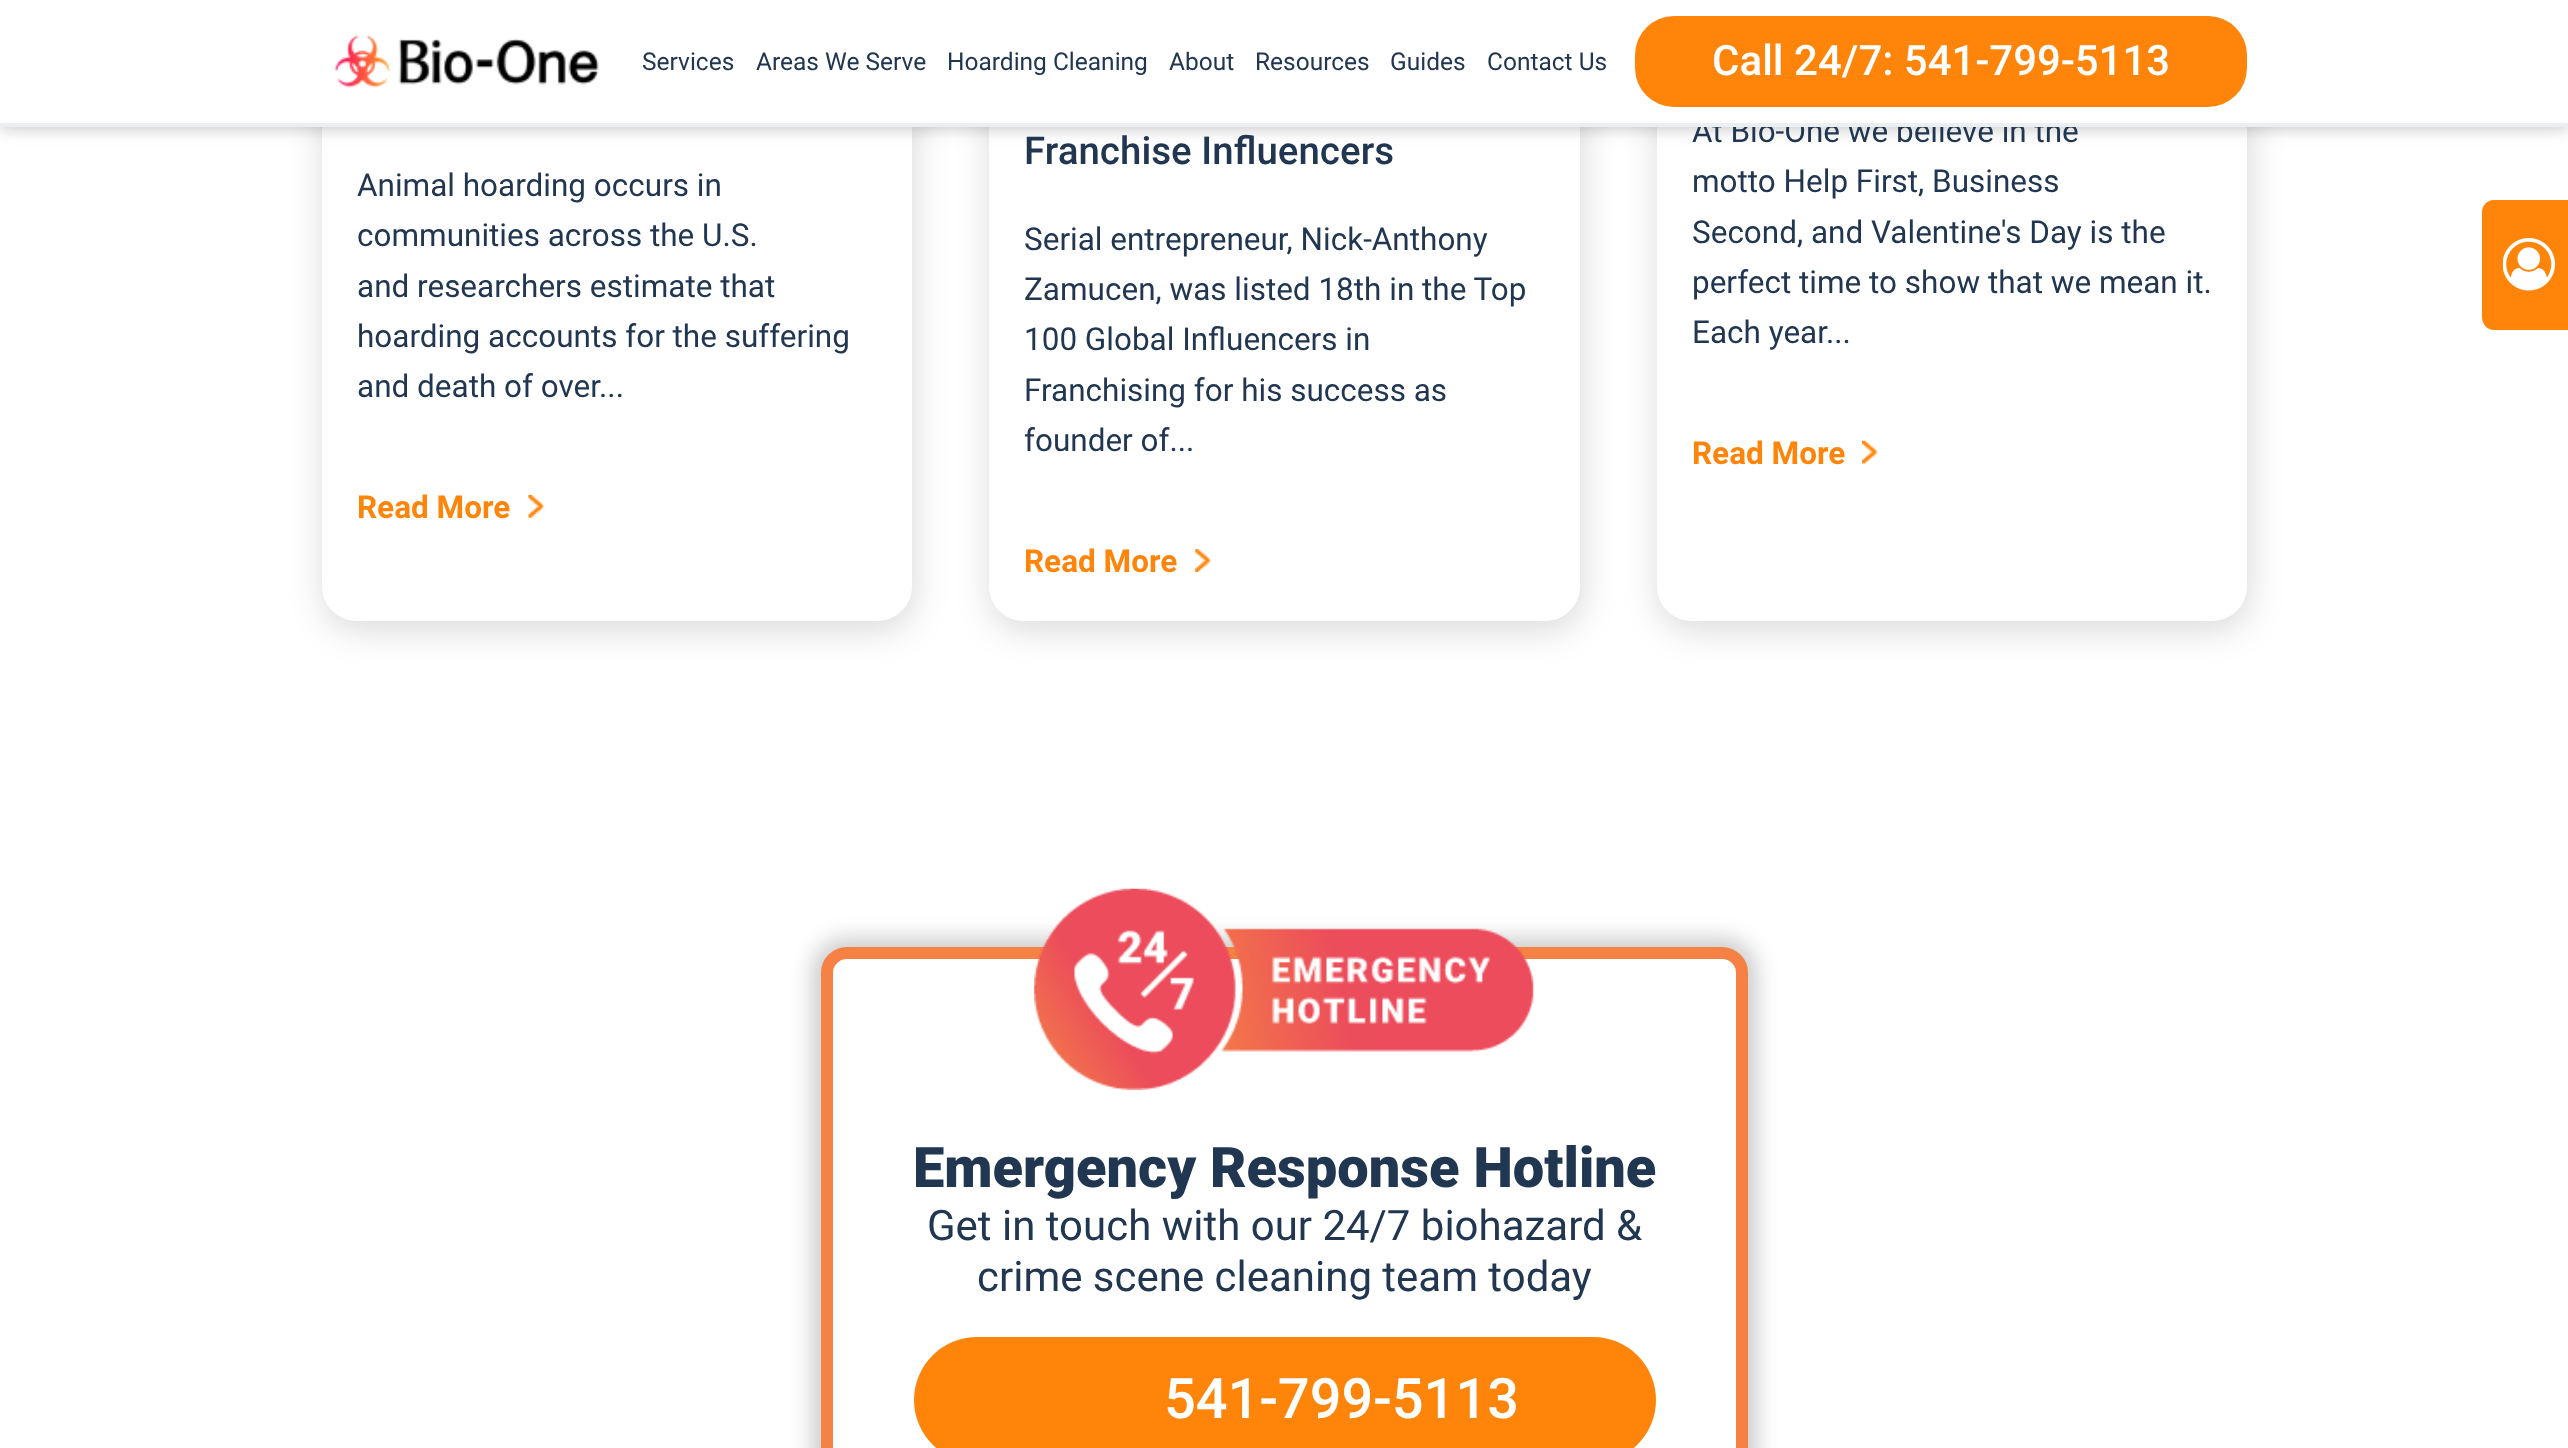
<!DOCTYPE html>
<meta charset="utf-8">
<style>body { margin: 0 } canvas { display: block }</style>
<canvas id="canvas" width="2568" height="1448"></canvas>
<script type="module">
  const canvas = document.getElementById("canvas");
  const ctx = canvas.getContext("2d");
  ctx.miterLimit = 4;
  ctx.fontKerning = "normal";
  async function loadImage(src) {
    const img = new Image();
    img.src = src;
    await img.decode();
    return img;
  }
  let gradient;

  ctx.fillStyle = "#ffffff";
  ctx.fillRect(0, 0, 2568, 1448);
  ctx.fillStyle = "rgba(0, 0, 0, 0.3)";
  ctx.filter = "blur(9px)";
  ctx.beginPath();
  ctx.rect(0, 0, 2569, 126);
  ctx.fill();
  ctx.filter = "none";
  ctx.save();
  ctx.beginPath();
  ctx.moveTo(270, 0);
  ctx.lineTo(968, 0);
  ctx.lineTo(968, 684);
  ctx.lineTo(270, 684);
  ctx.closePath();
  ctx.moveTo(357, -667);
  ctx.lineTo(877, -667);
  ctx.bezierCurveTo(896.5, -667, 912, -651.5, 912, -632);
  ctx.lineTo(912, 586);
  ctx.bezierCurveTo(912, 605.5, 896.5, 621, 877, 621);
  ctx.lineTo(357, 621);
  ctx.bezierCurveTo(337.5, 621, 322, 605.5, 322, 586);
  ctx.lineTo(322, -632);
  ctx.bezierCurveTo(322, -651.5, 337.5, -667, 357, -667);
  ctx.closePath();
  ctx.clip("evenodd");
  ctx.fillStyle = "rgba(0, 0, 0, 0.15)";
  ctx.filter = "blur(17.5px)";
  ctx.beginPath();
  ctx.roundRect(324, -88, 590, 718, 35);
  ctx.fill();
  ctx.filter = "none";
  ctx.restore();
  ctx.save();
  ctx.beginPath();
  ctx.moveTo(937, 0);
  ctx.lineTo(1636, 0);
  ctx.lineTo(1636, 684);
  ctx.lineTo(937, 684);
  ctx.closePath();
  ctx.moveTo(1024, -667);
  ctx.lineTo(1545, -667);
  ctx.bezierCurveTo(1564.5, -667, 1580, -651.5, 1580, -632);
  ctx.lineTo(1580, 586);
  ctx.bezierCurveTo(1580, 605.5, 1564.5, 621, 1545, 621);
  ctx.lineTo(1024, 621);
  ctx.bezierCurveTo(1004.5, 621, 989, 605.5, 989, 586);
  ctx.lineTo(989, -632);
  ctx.bezierCurveTo(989, -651.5, 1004.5, -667, 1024, -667);
  ctx.closePath();
  ctx.clip("evenodd");
  ctx.fillStyle = "rgba(0, 0, 0, 0.15)";
  ctx.filter = "blur(17.5px)";
  ctx.beginPath();
  ctx.roundRect(991, -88, 591, 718, 35);
  ctx.fill();
  ctx.filter = "none";
  ctx.restore();
  ctx.save();
  ctx.beginPath();
  ctx.moveTo(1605, 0);
  ctx.lineTo(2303, 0);
  ctx.lineTo(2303, 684);
  ctx.lineTo(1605, 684);
  ctx.closePath();
  ctx.moveTo(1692, -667);
  ctx.lineTo(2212, -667);
  ctx.bezierCurveTo(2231.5, -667, 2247, -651.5, 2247, -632);
  ctx.lineTo(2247, 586);
  ctx.bezierCurveTo(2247, 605.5, 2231.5, 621, 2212, 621);
  ctx.lineTo(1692, 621);
  ctx.bezierCurveTo(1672.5, 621, 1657, 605.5, 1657, 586);
  ctx.lineTo(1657, -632);
  ctx.bezierCurveTo(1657, -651.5, 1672.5, -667, 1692, -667);
  ctx.closePath();
  ctx.clip("evenodd");
  ctx.fillStyle = "rgba(0, 0, 0, 0.15)";
  ctx.filter = "blur(17.5px)";
  ctx.beginPath();
  ctx.roundRect(1659, -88, 590, 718, 35);
  ctx.fill();
  ctx.filter = "none";
  ctx.restore();
  ctx.font = "31.5px Roboto";
  ctx.fillStyle = "#213650";
  ctx.fillText("At Bio-One we believe in the", 1692, 142);
  ctx.fillStyle = "#ffffff";
  ctx.fillRect(0, 0, 2568, 123);
  ctx.fillStyle = "#eceff1";
  ctx.fillRect(0, 123, 2568, 4);
  ctx.drawImage(await loadImage("img1.png"), 334, 34, 265, 54);
  ctx.font = "24.5px Roboto";
  ctx.fillStyle = "#213650";
  ctx.fillText("Services", 642, 70);
  ctx.fillText("Areas We Serve", 756, 70);
  ctx.fillText("Hoarding Cleaning", 947, 70);
  ctx.fillText("About", 1169, 70);
  ctx.fillText("Resources", 1255, 70);
  ctx.fillText("Guides", 1390, 70);
  ctx.fillText("Contact Us", 1487, 70);
  ctx.fillStyle = "#ff850a";
  ctx.beginPath();
  ctx.roundRect(1635, 16, 612, 91, 39);
  ctx.fill();
  ctx.font = "500 42px Roboto";
  ctx.fillStyle = "#ffffff";
  ctx.fillText("Call 24/7: 541-799-5113", 1712, 75);
  ctx.font = "31.5px Roboto";
  ctx.fillStyle = "#213650";
  ctx.fillText("Animal hoarding occurs in", 357, 196);
  ctx.fillText("communities across the U.S.", 357, 246);
  ctx.fillText("and researchers estimate that", 357, 297);
  ctx.fillText("hoarding accounts for the suffering", 357, 347);
  ctx.fillText("and death of over...", 357, 397);
  ctx.font = "bold 31.5px Roboto";
  ctx.fillStyle = "#ff850a";
  ctx.fillText("Read More", 357, 518);
  ctx.drawImage(await loadImage("img2.png"), 528, 495, 17, 23);
  ctx.font = "500 38.5px Roboto";
  ctx.fillStyle = "#213650";
  ctx.fillText("Franchise Influencers", 1024, 164);
  ctx.font = "31.5px Roboto";
  ctx.fillText("Serial entrepreneur, Nick-Anthony", 1024, 250);
  ctx.fillText("Zamucen, was listed 18th in the Top", 1024, 300);
  ctx.fillText("100 Global Influencers in", 1024, 350);
  ctx.fillText("Franchising for his success as", 1024, 401);
  ctx.fillText("founder of...", 1024, 451);
  ctx.font = "bold 31.5px Roboto";
  ctx.fillStyle = "#ff850a";
  ctx.fillText("Read More", 1024, 572);
  ctx.drawImage(await loadImage("img3.png"), 1195, 549, 16, 23);
  ctx.font = "31.5px Roboto";
  ctx.fillStyle = "#213650";
  ctx.fillText("motto Help First, Business", 1692, 192);
  ctx.fillText("Second, and Valentine's Day is the", 1692, 243);
  ctx.fillText("perfect time to show that we mean it.", 1692, 293);
  ctx.fillText("Each year...", 1692, 343);
  ctx.font = "bold 31.5px Roboto";
  ctx.fillStyle = "#ff850a";
  ctx.fillText("Read More", 1692, 464);
  ctx.drawImage(await loadImage("img4.png"), 1862, 440, 16, 24);
  gradient = ctx.createLinearGradient(653, 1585, 632, 1351);
  gradient.addColorStop(0.49, "#0a0525");
  gradient.addColorStop(0.52, "#ffffff");
  ctx.fillStyle = gradient;
  ctx.fillRect(819, 1447, 2, 1);
  gradient = ctx.createLinearGradient(1916, 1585, 1937, 1351);
  gradient.addColorStop(0.49, "#0a0525");
  gradient.addColorStop(0.52, "#ffffff");
  ctx.fillStyle = gradient;
  ctx.fillRect(1748, 1447, 2, 1);
  ctx.fillStyle = "#ff850a";
  ctx.beginPath();
  ctx.moveTo(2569, 200);
  ctx.lineTo(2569, 330);
  ctx.lineTo(2494, 330);
  ctx.bezierCurveTo(2487, 330, 2482, 324, 2482, 317);
  ctx.lineTo(2482, 212);
  ctx.bezierCurveTo(2482, 206, 2487, 200, 2494, 200);
  ctx.closePath();
  ctx.fill();
  ctx.drawImage(await loadImage("img5.png"), 2503, 238, 52, 53);
  ctx.fillStyle = "rgba(0, 0, 0, 0.2)";
  ctx.filter = "blur(10.5px)";
  ctx.beginPath();
  ctx.roundRect(812, 938, 945, 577, 35);
  ctx.fill();
  ctx.filter = "none";
  ctx.fillStyle = "#ffffff";
  ctx.beginPath();
  ctx.roundRect(827, 953, 915, 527, 20);
  ctx.fill();
  ctx.strokeStyle = "#f58145";
  ctx.lineWidth = 12;
  ctx.stroke();
  ctx.drawImage(await loadImage("img6.png"), 1034, 888, 501, 202);
  ctx.font = "900 56px Roboto";
  ctx.fillStyle = "#213650";
  ctx.fillText("Emergency Response Hotline", 913, 1187);
  ctx.font = "42px Roboto";
  ctx.fillText("Get in touch with our 24/7 biohazard &", 927, 1240);
  ctx.fillText("crime scene cleaning team today", 977, 1291);
  ctx.fillStyle = "#ff850a";
  ctx.beginPath();
  ctx.roundRect(914, 1337, 742, 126, 63);
  ctx.fill();
  ctx.font = "500 56px Roboto";
  ctx.fillStyle = "#ffffff";
  ctx.fillText("541-799-5113", 1164, 1418);
</script>
